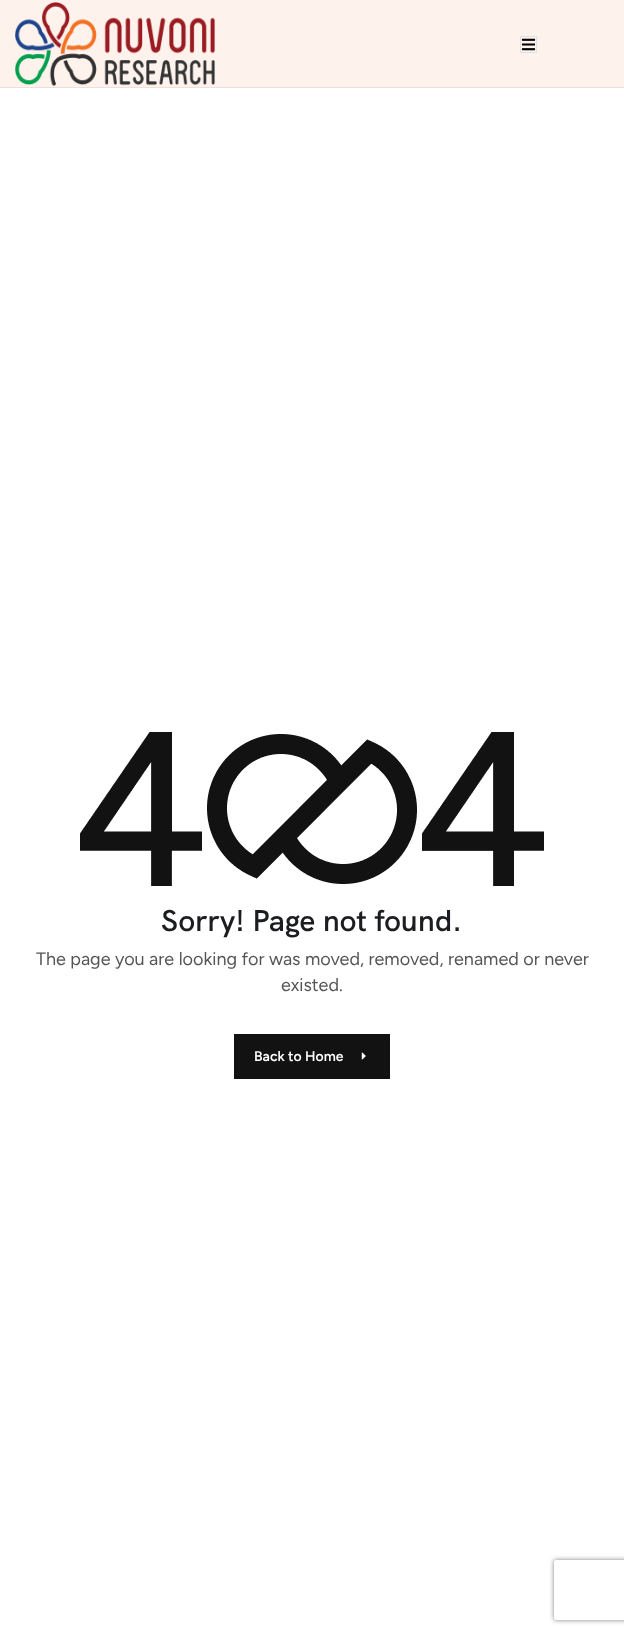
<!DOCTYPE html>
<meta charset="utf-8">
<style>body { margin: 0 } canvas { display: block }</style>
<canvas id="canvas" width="624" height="1634"></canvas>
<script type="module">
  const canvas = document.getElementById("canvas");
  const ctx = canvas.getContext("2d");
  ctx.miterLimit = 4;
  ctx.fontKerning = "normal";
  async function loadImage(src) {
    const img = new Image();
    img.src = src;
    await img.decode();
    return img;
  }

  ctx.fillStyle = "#ffffff";
  ctx.fillRect(0, 0, 624, 1634);
  ctx.fillStyle = "#fef2ed";
  ctx.fillRect(0, 0, 624, 87);
  ctx.fillStyle = "#ebe0db";
  ctx.fillRect(0, 87, 624, 1);
  ctx.drawImage(await loadImage("img1.png"), 15, 2, 200, 85);
  ctx.strokeStyle = "#dee1e7";
  ctx.strokeRect(520.5, 36.5, 16, 16);
  ctx.drawImage(await loadImage("img2.png"), 521, 38, 15, 13);
  ctx.drawImage(await loadImage("img3.png"), 80, 732, 464, 154);
  ctx.font = "600 30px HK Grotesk";
  ctx.fillStyle = "#1c1d20";
  ctx.fillText("Sorry! Page not found.", 161, 931);
  ctx.font = "18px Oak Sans";
  ctx.fillStyle = "#555555";
  ctx.fillText("The page you are looking for was moved, removed, renamed or never", 36, 965);
  ctx.fillText("existed.", 281, 991);
  ctx.fillStyle = "#121212";
  ctx.fillRect(234, 1034, 156, 45);
  ctx.font = "600 14px Oak Sans";
  ctx.fillStyle = "#ffffff";
  ctx.fillText("Back to Home", 254, 1061);
  ctx.drawImage(await loadImage("img4.png"), 361, 1052, 5, 8);
  ctx.save();
  ctx.beginPath();
  ctx.moveTo(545, 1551);
  ctx.lineTo(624, 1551);
  ctx.lineTo(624, 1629);
  ctx.lineTo(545, 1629);
  ctx.closePath();
  ctx.moveTo(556, 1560);
  ctx.lineTo(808, 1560);
  ctx.bezierCurveTo(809, 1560, 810, 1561, 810, 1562);
  ctx.lineTo(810, 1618);
  ctx.bezierCurveTo(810, 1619, 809, 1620, 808, 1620);
  ctx.lineTo(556, 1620);
  ctx.bezierCurveTo(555, 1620, 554, 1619, 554, 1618);
  ctx.lineTo(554, 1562);
  ctx.bezierCurveTo(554, 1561, 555, 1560, 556, 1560);
  ctx.closePath();
  ctx.clip("evenodd");
  ctx.fillStyle = "#808080";
  ctx.filter = "blur(2.5px)";
  ctx.beginPath();
  ctx.roundRect(554, 1560, 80, 60, 2);
  ctx.fill();
  ctx.filter = "none";
  ctx.restore();
</script>
